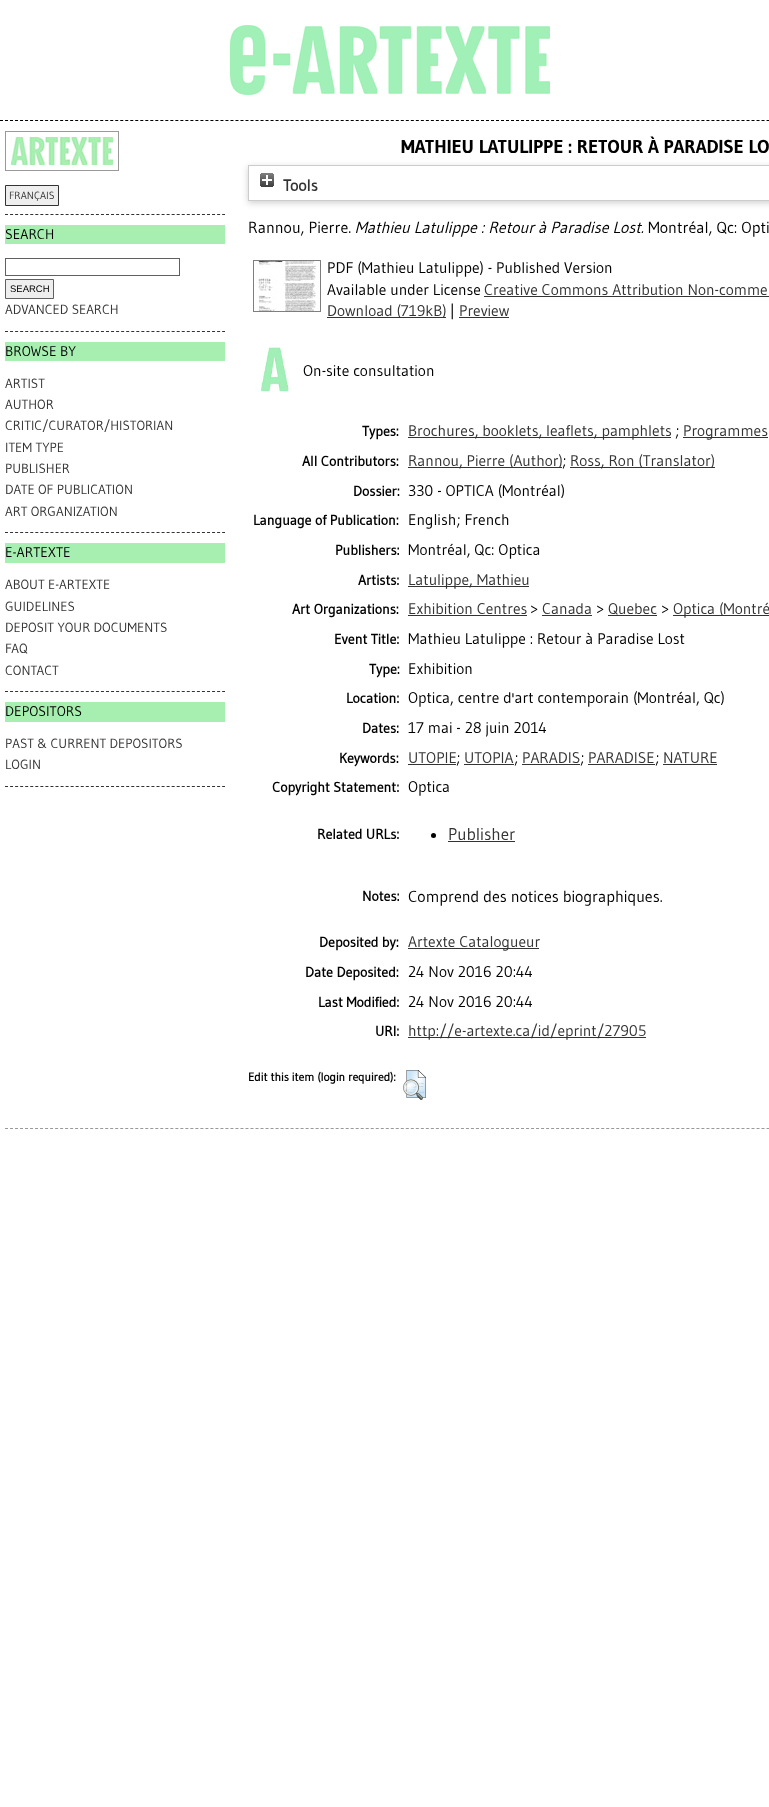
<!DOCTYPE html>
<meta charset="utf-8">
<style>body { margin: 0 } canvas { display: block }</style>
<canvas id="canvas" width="769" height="1807"></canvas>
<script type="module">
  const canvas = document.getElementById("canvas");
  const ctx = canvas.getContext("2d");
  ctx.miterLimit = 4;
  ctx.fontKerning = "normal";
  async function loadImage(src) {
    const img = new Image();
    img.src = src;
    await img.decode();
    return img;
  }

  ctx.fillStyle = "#ffffff";
  ctx.fillRect(0, 0, 769, 1807);
  ctx.beginPath();
  ctx.moveTo(-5, 120.5);
  ctx.lineTo(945, 120.5);
  ctx.strokeStyle = "#000000";
  ctx.setLineDash([3, 2.01]);
  ctx.stroke();
  ctx.drawImage(await loadImage("img1.png"), 230, 25, 320, 70);
  ctx.strokeStyle = "#999999";
  ctx.setLineDash([]);
  ctx.strokeRect(5.5, 131.5, 113, 39);
  ctx.drawImage(await loadImage("img2.png"), 11, 137, 102, 28);
  ctx.beginPath();
  ctx.moveTo(5, 214.5);
  ctx.lineTo(225, 214.5);
  ctx.strokeStyle = "#333333";
  ctx.setLineDash([3, 2.05]);
  ctx.stroke();
  ctx.fillStyle = "#eeeeee";
  ctx.beginPath();
  ctx.rect(5.5, 185.5, 53, 20);
  ctx.fill();
  ctx.setLineDash([]);
  ctx.stroke();
  ctx.font = "10.5px Gudea";
  ctx.fillStyle = "#333333";
  ctx.fillText("FRANÇAIS", 9, 199);
  ctx.beginPath();
  ctx.moveTo(5, 331.5);
  ctx.lineTo(225, 331.5);
  ctx.setLineDash([3, 2.05]);
  ctx.stroke();
  ctx.fillStyle = "#a7efb0";
  ctx.fillRect(5, 225, 220, 19);
  ctx.font = "14px Gudea";
  ctx.fillStyle = "#000000";
  ctx.fillText("SEARCH", 5, 239);
  ctx.strokeStyle = "#606060";
  ctx.setLineDash([]);
  ctx.strokeRect(5.5, 258.5, 174, 17);
  ctx.fillStyle = "#eeeeee";
  ctx.beginPath();
  ctx.rect(5.5, 279.5, 48, 19);
  ctx.fill();
  ctx.stroke();
  ctx.font = "9.5px Liberation Sans";
  ctx.fillStyle = "#000000";
  ctx.fillText("SEARCH", 10, 292);
  ctx.font = "13.3px Gudea";
  ctx.fillStyle = "#333333";
  ctx.fillText("ADVANCED SEARCH", 5, 314);
  ctx.beginPath();
  ctx.moveTo(5, 532.5);
  ctx.lineTo(225, 532.5);
  ctx.strokeStyle = "#333333";
  ctx.setLineDash([3, 2.05]);
  ctx.stroke();
  ctx.fillStyle = "#a7efb0";
  ctx.fillRect(5, 342, 220, 19);
  ctx.font = "14px Gudea";
  ctx.fillStyle = "#000000";
  ctx.fillText("BROWSE BY", 5, 356);
  ctx.font = "13.3px Gudea";
  ctx.fillStyle = "#333333";
  ctx.fillText("ARTIST", 5, 388);
  ctx.fillText("AUTHOR", 5, 409);
  ctx.fillText("CRITIC/CURATOR/HISTORIAN", 5, 430);
  ctx.fillText("ITEM TYPE", 5, 452);
  ctx.fillText("PUBLISHER", 5, 473);
  ctx.fillText("DATE OF PUBLICATION", 5, 494);
  ctx.fillText("ART ORGANIZATION", 5, 516);
  ctx.beginPath();
  ctx.moveTo(5, 691.5);
  ctx.lineTo(225, 691.5);
  ctx.stroke();
  ctx.fillStyle = "#a7efb0";
  ctx.fillRect(5, 543, 220, 20);
  ctx.font = "14px Gudea";
  ctx.fillStyle = "#000000";
  ctx.fillText("E-ARTEXTE", 5, 557);
  ctx.font = "13.3px Gudea";
  ctx.fillStyle = "#333333";
  ctx.fillText("ABOUT E-ARTEXTE", 5, 589);
  ctx.fillText("GUIDELINES", 5, 611);
  ctx.fillText("DEPOSIT YOUR DOCUMENTS", 5, 632);
  ctx.fillText("FAQ", 5, 653);
  ctx.fillText("CONTACT", 5, 675);
  ctx.beginPath();
  ctx.moveTo(5, 786.5);
  ctx.lineTo(225, 786.5);
  ctx.stroke();
  ctx.fillStyle = "#a7efb0";
  ctx.fillRect(5, 702, 220, 20);
  ctx.font = "14px Gudea";
  ctx.fillStyle = "#000000";
  ctx.fillText("DEPOSITORS", 5, 716);
  ctx.font = "13.3px Gudea";
  ctx.fillStyle = "#333333";
  ctx.fillText("PAST & CURRENT DEPOSITORS", 5, 748);
  ctx.fillText("LOGIN", 5, 769);
  ctx.font = "bold 18.7px 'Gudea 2'";
  ctx.fillStyle = "#000000";
  ctx.fillText("MATHIEU LATULIPPE : RETOUR À PARADISE LO", 401, 153);
  ctx.save();
  ctx.beginPath();
  ctx.moveTo(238, 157);
  ctx.lineTo(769, 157);
  ctx.lineTo(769, 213);
  ctx.lineTo(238, 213);
  ctx.closePath();
  ctx.moveTo(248, 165);
  ctx.lineTo(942, 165);
  ctx.lineTo(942, 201);
  ctx.lineTo(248, 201);
  ctx.closePath();
  ctx.clip("evenodd");
  ctx.fillStyle = "rgba(100, 100, 100, 0.3)";
  ctx.filter = "blur(3px)";
  ctx.beginPath();
  ctx.rect(248, 167, 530, 36);
  ctx.fill();
  ctx.filter = "none";
  ctx.restore();
  ctx.strokeStyle = "#cccccc";
  ctx.setLineDash([]);
  ctx.strokeRect(248.5, 165.5, 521, 35);
  ctx.drawImage(await loadImage("img3.png"), 260, 173, 14, 14);
  ctx.font = "bold 16px Gudea";
  ctx.fillStyle = "#333333";
  ctx.fillText("Tools", 283, 191);
  ctx.font = "16px Gudea";
  ctx.fillStyle = "#000000";
  ctx.fillText("Rannou, Pierre.", 248, 233);
  ctx.font = "italic 16px Gudea";
  ctx.fillText("Mathieu Latulippe : Retour à Paradise Lost.", 355, 233);
  ctx.font = "16px Gudea";
  ctx.fillText("Montréal, Qc: Opti", 648, 233);
  ctx.drawImage(await loadImage("img4.png"), 253, 260, 68, 52);
  ctx.font = "15.5px Gudea";
  ctx.fillText("PDF (Mathieu Latulippe) - Published Version", 327, 273);
  ctx.fillText("Available under License", 327, 295);
  ctx.fillStyle = "#333333";
  ctx.fillText("Creative Commons Attribution Non-comme", 484, 295);
  ctx.fillRect(484, 296, 285, 1);
  ctx.fillRect(327, 317, 119, 1);
  ctx.fillText("Download (719kB)", 327, 316);
  ctx.fillStyle = "#000000";
  ctx.fillText("|", 450, 316);
  ctx.fillStyle = "#333333";
  ctx.fillText("Preview", 459, 316);
  ctx.fillRect(459, 317, 50, 1);
  ctx.drawImage(await loadImage("img5.png"), 260, 347, 30, 45);
  ctx.fillStyle = "#000000";
  ctx.fillText("On-site consultation", 303, 376);
  ctx.font = "bold 14px Gudea";
  ctx.fillText("Types:", 362, 436);
  ctx.fillStyle = "#333333";
  ctx.fillRect(408, 437, 263, 1);
  ctx.font = "15.5px Gudea";
  ctx.fillText("Brochures, booklets, leaflets, pamphlets", 408, 436);
  ctx.fillStyle = "#000000";
  ctx.fillText(";", 675, 436);
  ctx.fillStyle = "#333333";
  ctx.fillRect(683, 437, 85, 1);
  ctx.fillText("Programmes", 683, 436);
  ctx.font = "bold 14px Gudea";
  ctx.fillStyle = "#000000";
  ctx.fillText("All Contributors:", 302, 466);
  ctx.fillStyle = "#333333";
  ctx.fillRect(408, 467, 154, 1);
  ctx.font = "15.5px Gudea";
  ctx.fillText("Rannou, Pierre (Author)", 408, 466);
  ctx.fillStyle = "#000000";
  ctx.fillText(";", 562, 466);
  ctx.fillStyle = "#333333";
  ctx.fillRect(570, 467, 145, 1);
  ctx.fillText("Ross, Ron (Translator)", 570, 466);
  ctx.font = "bold 14px Gudea";
  ctx.fillStyle = "#000000";
  ctx.fillText("Dossier:", 353, 496);
  ctx.font = "15.5px Gudea";
  ctx.fillText("330 - OPTICA (Montréal)", 408, 496);
  ctx.font = "bold 14px Gudea";
  ctx.fillText("Language of Publication:", 253, 525);
  ctx.font = "15.5px Gudea";
  ctx.fillText("English; French", 408, 525);
  ctx.font = "bold 14px Gudea";
  ctx.fillText("Publishers:", 335, 555);
  ctx.font = "15.5px Gudea";
  ctx.fillText("Montréal, Qc: Optica", 408, 555);
  ctx.font = "bold 14px Gudea";
  ctx.fillText("Artists:", 358, 585);
  ctx.fillStyle = "#333333";
  ctx.fillRect(408, 586, 121, 1);
  ctx.font = "15.5px Gudea";
  ctx.fillText("Latulippe, Mathieu", 408, 585);
  ctx.font = "bold 14px Gudea";
  ctx.fillStyle = "#000000";
  ctx.fillText("Art Organizations:", 292, 614);
  ctx.font = "15.5px Gudea";
  ctx.fillStyle = "#333333";
  ctx.fillText("Exhibition Centres", 408, 614);
  ctx.fillRect(408, 615, 119, 1);
  ctx.fillStyle = "#000000";
  ctx.fillText(">", 530, 614);
  ctx.fillStyle = "#333333";
  ctx.fillText("Canada", 542, 614);
  ctx.fillRect(542, 615, 50, 1);
  ctx.fillStyle = "#000000";
  ctx.fillText(">", 596, 614);
  ctx.fillStyle = "#333333";
  ctx.fillText("Quebec", 608, 614);
  ctx.fillRect(608, 615, 49, 1);
  ctx.fillStyle = "#000000";
  ctx.fillText(">", 661, 614);
  ctx.fillStyle = "#333333";
  ctx.fillRect(673, 615, 96, 1);
  ctx.fillText("Optica (Montré", 673, 614);
  ctx.font = "bold 14px Gudea";
  ctx.fillStyle = "#000000";
  ctx.fillText("Event Title:", 334, 644);
  ctx.font = "15.5px Gudea";
  ctx.fillText("Mathieu Latulippe : Retour à Paradise Lost", 408, 644);
  ctx.font = "bold 14px Gudea";
  ctx.fillText("Type:", 369, 674);
  ctx.font = "15.5px Gudea";
  ctx.fillText("Exhibition", 408, 674);
  ctx.font = "bold 14px Gudea";
  ctx.fillText("Location:", 346, 703);
  ctx.font = "15.5px Gudea";
  ctx.fillText("Optica, centre d'art contemporain (Montréal, Qc)", 408, 703);
  ctx.font = "bold 14px Gudea";
  ctx.fillText("Dates:", 362, 733);
  ctx.font = "15.5px Gudea";
  ctx.fillText("17 mai - 28 juin 2014", 408, 733);
  ctx.font = "bold 14px Gudea";
  ctx.fillText("Keywords:", 339, 763);
  ctx.font = "15.5px Gudea";
  ctx.fillStyle = "#333333";
  ctx.fillText("UTOPIE", 408, 763);
  ctx.fillRect(408, 764, 48, 1);
  ctx.fillStyle = "#000000";
  ctx.fillText(";", 456, 763);
  ctx.fillStyle = "#333333";
  ctx.fillText("UTOPIA", 464, 763);
  ctx.fillRect(464, 764, 50, 1);
  ctx.fillStyle = "#000000";
  ctx.fillText(";", 514, 763);
  ctx.fillStyle = "#333333";
  ctx.fillText("PARADIS", 522, 763);
  ctx.fillRect(522, 764, 58, 1);
  ctx.fillStyle = "#000000";
  ctx.fillText(";", 580, 763);
  ctx.fillStyle = "#333333";
  ctx.fillText("PARADISE", 588, 763);
  ctx.fillRect(588, 764, 67, 1);
  ctx.fillStyle = "#000000";
  ctx.fillText(";", 655, 763);
  ctx.fillStyle = "#333333";
  ctx.fillText("NATURE", 663, 763);
  ctx.fillRect(663, 764, 54, 1);
  ctx.font = "bold 14px Gudea";
  ctx.fillStyle = "#000000";
  ctx.fillText("Copyright Statement:", 272, 792);
  ctx.font = "15.5px Gudea";
  ctx.fillText("Optica", 408, 792);
  ctx.font = "bold 14px Gudea";
  ctx.fillText("Related URLs:", 317, 839);
  ctx.beginPath();
  ctx.arc(433.5, 835.5, 2.5, 0, Math.PI * 2);
  ctx.fill();
  ctx.font = "17px Gudea";
  ctx.fillStyle = "#333333";
  ctx.fillText("Publisher", 448, 840);
  ctx.fillRect(448, 841, 67, 1);
  ctx.font = "bold 14px Gudea";
  ctx.fillStyle = "#000000";
  ctx.fillText("Notes:", 362, 901);
  ctx.font = "16px Gudea";
  ctx.fillText("Comprend des notices biographiques.", 408, 902);
  ctx.font = "bold 14px Gudea";
  ctx.fillText("Deposited by:", 319, 947);
  ctx.fillStyle = "#333333";
  ctx.fillRect(408, 948, 131, 1);
  ctx.font = "15.5px Gudea";
  ctx.fillText("Artexte Catalogueur", 408, 947);
  ctx.font = "bold 14px Gudea";
  ctx.fillStyle = "#000000";
  ctx.fillText("Date Deposited:", 305, 977);
  ctx.font = "15.5px Gudea";
  ctx.fillText("24 Nov 2016 20:44", 408, 977);
  ctx.font = "bold 14px Gudea";
  ctx.fillText("Last Modified:", 318, 1007);
  ctx.font = "15.5px Gudea";
  ctx.fillText("24 Nov 2016 20:44", 408, 1007);
  ctx.font = "bold 14px Gudea";
  ctx.fillText("URI:", 375, 1036);
  ctx.fillStyle = "#333333";
  ctx.fillRect(408, 1037, 238, 1);
  ctx.font = "15.5px Gudea";
  ctx.fillText("http://e-artexte.ca/id/eprint/27905", 408, 1036);
  ctx.font = "bold 11.75px Gudea";
  ctx.fillStyle = "#000000";
  ctx.fillText("Edit this item (login required):", 248, 1081);
  ctx.drawImage(await loadImage("img6.png"), 403, 1070, 23, 30);
  ctx.beginPath();
  ctx.moveTo(5, 1128.5);
  ctx.lineTo(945, 1128.5);
  ctx.strokeStyle = "#999999";
  ctx.setLineDash([3, 2.01]);
  ctx.stroke();
</script>
